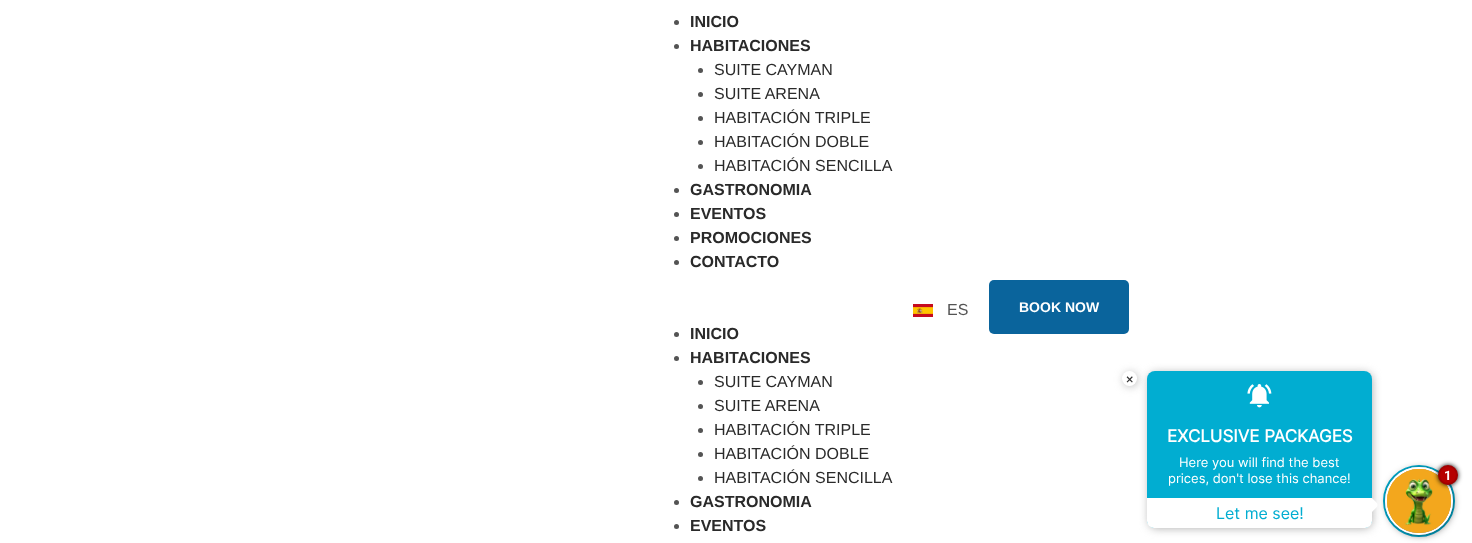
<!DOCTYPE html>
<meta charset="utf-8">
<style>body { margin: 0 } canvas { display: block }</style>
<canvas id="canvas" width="1472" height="543"></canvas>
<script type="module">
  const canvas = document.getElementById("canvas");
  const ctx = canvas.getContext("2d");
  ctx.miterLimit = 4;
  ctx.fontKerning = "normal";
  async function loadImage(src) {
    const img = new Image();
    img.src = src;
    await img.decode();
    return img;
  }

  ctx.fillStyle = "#ffffff";
  ctx.fillRect(0, 0, 1472, 543);
  ctx.fillStyle = "#545454";
  ctx.beginPath();
  ctx.arc(676.5, 22.5, 2.5, 0, Math.PI * 2);
  ctx.fill();
  ctx.font = "bold 16px Liberation Sans";
  ctx.fillStyle = "#2a2a2a";
  ctx.fillText("INICIO", 690, 27);
  ctx.fillStyle = "#545454";
  ctx.beginPath();
  ctx.arc(676.5, 46.5, 2.5, 0, Math.PI * 2);
  ctx.fill();
  ctx.fillStyle = "#2a2a2a";
  ctx.fillText("HABITACIONES", 690, 51);
  ctx.fillStyle = "#545454";
  ctx.beginPath();
  ctx.arc(700.5, 70.5, 2.5, 0, Math.PI * 2);
  ctx.fill();
  ctx.font = "16px Liberation Sans";
  ctx.fillStyle = "#2a2a2a";
  ctx.fillText("SUITE CAYMAN", 714, 75);
  ctx.fillStyle = "#545454";
  ctx.beginPath();
  ctx.arc(700.5, 94.5, 2.5, 0, Math.PI * 2);
  ctx.fill();
  ctx.fillStyle = "#2a2a2a";
  ctx.fillText("SUITE ARENA", 714, 99);
  ctx.fillStyle = "#545454";
  ctx.beginPath();
  ctx.arc(700.5, 118.5, 2.5, 0, Math.PI * 2);
  ctx.fill();
  ctx.fillStyle = "#2a2a2a";
  ctx.fillText("HABITACIÓN TRIPLE", 714, 123);
  ctx.fillStyle = "#545454";
  ctx.beginPath();
  ctx.arc(700.5, 142.5, 2.5, 0, Math.PI * 2);
  ctx.fill();
  ctx.fillStyle = "#2a2a2a";
  ctx.fillText("HABITACIÓN DOBLE", 714, 147);
  ctx.fillStyle = "#545454";
  ctx.beginPath();
  ctx.arc(700.5, 166.5, 2.5, 0, Math.PI * 2);
  ctx.fill();
  ctx.fillStyle = "#2a2a2a";
  ctx.fillText("HABITACIÓN SENCILLA", 714, 171);
  ctx.fillStyle = "#545454";
  ctx.beginPath();
  ctx.arc(676.5, 190.5, 2.5, 0, Math.PI * 2);
  ctx.fill();
  ctx.font = "bold 16px Liberation Sans";
  ctx.fillStyle = "#2a2a2a";
  ctx.fillText("GASTRONOMIA", 690, 195);
  ctx.fillStyle = "#545454";
  ctx.beginPath();
  ctx.arc(676.5, 214.5, 2.5, 0, Math.PI * 2);
  ctx.fill();
  ctx.fillStyle = "#2a2a2a";
  ctx.fillText("EVENTOS", 690, 219);
  ctx.fillStyle = "#545454";
  ctx.beginPath();
  ctx.arc(676.5, 238.5, 2.5, 0, Math.PI * 2);
  ctx.fill();
  ctx.fillStyle = "#2a2a2a";
  ctx.fillText("PROMOCIONES", 690, 243);
  ctx.fillStyle = "#545454";
  ctx.beginPath();
  ctx.arc(676.5, 262.5, 2.5, 0, Math.PI * 2);
  ctx.fill();
  ctx.fillStyle = "#2a2a2a";
  ctx.fillText("CONTACTO", 690, 267);
  ctx.fillStyle = "#545454";
  ctx.beginPath();
  ctx.arc(676.5, 334.5, 2.5, 0, Math.PI * 2);
  ctx.fill();
  ctx.fillStyle = "#2a2a2a";
  ctx.fillText("INICIO", 690, 339);
  ctx.fillStyle = "#545454";
  ctx.beginPath();
  ctx.arc(676.5, 358.5, 2.5, 0, Math.PI * 2);
  ctx.fill();
  ctx.fillStyle = "#2a2a2a";
  ctx.fillText("HABITACIONES", 690, 363);
  ctx.fillStyle = "#545454";
  ctx.beginPath();
  ctx.arc(700.5, 382.5, 2.5, 0, Math.PI * 2);
  ctx.fill();
  ctx.font = "16px Liberation Sans";
  ctx.fillStyle = "#2a2a2a";
  ctx.fillText("SUITE CAYMAN", 714, 387);
  ctx.fillStyle = "#545454";
  ctx.beginPath();
  ctx.arc(700.5, 406.5, 2.5, 0, Math.PI * 2);
  ctx.fill();
  ctx.fillStyle = "#2a2a2a";
  ctx.fillText("SUITE ARENA", 714, 411);
  ctx.fillStyle = "#545454";
  ctx.beginPath();
  ctx.arc(700.5, 430.5, 2.5, 0, Math.PI * 2);
  ctx.fill();
  ctx.fillStyle = "#2a2a2a";
  ctx.fillText("HABITACIÓN TRIPLE", 714, 435);
  ctx.fillStyle = "#545454";
  ctx.beginPath();
  ctx.arc(700.5, 454.5, 2.5, 0, Math.PI * 2);
  ctx.fill();
  ctx.fillStyle = "#2a2a2a";
  ctx.fillText("HABITACIÓN DOBLE", 714, 459);
  ctx.fillStyle = "#545454";
  ctx.beginPath();
  ctx.arc(700.5, 478.5, 2.5, 0, Math.PI * 2);
  ctx.fill();
  ctx.fillStyle = "#2a2a2a";
  ctx.fillText("HABITACIÓN SENCILLA", 714, 483);
  ctx.fillStyle = "#545454";
  ctx.beginPath();
  ctx.arc(676.5, 502.5, 2.5, 0, Math.PI * 2);
  ctx.fill();
  ctx.font = "bold 16px Liberation Sans";
  ctx.fillStyle = "#2a2a2a";
  ctx.fillText("GASTRONOMIA", 690, 507);
  ctx.fillStyle = "#545454";
  ctx.beginPath();
  ctx.arc(676.5, 526.5, 2.5, 0, Math.PI * 2);
  ctx.fill();
  ctx.fillStyle = "#2a2a2a";
  ctx.fillText("EVENTOS", 690, 531);
  ctx.drawImage(await loadImage("img1.png"), 913, 304, 20, 13);
  ctx.font = "16px Liberation Sans";
  ctx.fillStyle = "#545454";
  ctx.fillText("ES", 947, 315);
  ctx.fillStyle = "#0a649c";
  ctx.beginPath();
  ctx.roundRect(989, 280, 140, 54, 5);
  ctx.fill();
  ctx.font = "bold 14px Liberation Sans";
  ctx.fillStyle = "#ffffff";
  ctx.fillText("BOOK NOW", 1019, 312);
  ctx.fillStyle = "#aaaaaa";
  ctx.filter = "blur(5px)";
  ctx.beginPath();
  ctx.roundRect(1149, 373, 223, 155, 7);
  ctx.fill();
  ctx.filter = "none";
  ctx.beginPath();
  ctx.arc(1419, 501, 35, 0, Math.PI * 2);
  ctx.strokeStyle = "#01add1";
  ctx.lineWidth = 2;
  ctx.stroke();
  ctx.fillStyle = "#01add1";
  ctx.beginPath();
  ctx.roundRect(1147, 371, 225, 157, 8);
  ctx.fill();
  ctx.fillStyle = "#ffffff";
  ctx.beginPath();
  ctx.roundRect(1147, 498, 225, 30, [0, 0, 7, 7]);
  ctx.fill();
  ctx.beginPath();
  ctx.moveTo(1372, 498);
  ctx.bezierCurveTo(1379.5, 505.5, 1379.5, 504.5, 1372, 512);
  ctx.lineTo(1365, 505);
  ctx.closePath();
  ctx.fill();
  ctx.fillStyle = "#000000";
  ctx.filter = "blur(5px)";
  ctx.beginPath();
  ctx.roundRect(1389, 471, 62, 62, 31);
  ctx.fill();
  ctx.filter = "none";
  ctx.beginPath();
  ctx.arc(1419, 501, 33, 0, Math.PI * 2);
  ctx.strokeStyle = "#ffffff";
  ctx.stroke();
  ctx.fillStyle = "#aaaaaa";
  ctx.filter = "blur(5px)";
  ctx.beginPath();
  ctx.roundRect(1124, 373, 13, 13, 6.5);
  ctx.fill();
  ctx.filter = "none";
  ctx.fillStyle = "#ffffff";
  ctx.beginPath();
  ctx.arc(1129.5, 378.5, 7.5, 0, Math.PI * 2);
  ctx.fill();
  ctx.font = "14px Roboto";
  ctx.fillStyle = "#333333";
  ctx.fillText("×", 1126, 384);
  ctx.drawImage(await loadImage("img2.png"), 1247, 384, 25, 24);
  ctx.font = "bold 17px Inter";
  ctx.fillStyle = "#ffffff";
  ctx.fillText("EXCLUSIVE PACKAGES", 1167, 442);
  ctx.font = "13px Inter";
  ctx.fillText("Here you will find the best", 1179, 467);
  ctx.fillText("prices, don't lose this chance!", 1168, 483);
  ctx.font = "16px Inter";
  ctx.fillStyle = "#01add1";
  ctx.fillText("Let me see!", 1216, 519);
  ctx.fillStyle = "#f1a718";
  ctx.beginPath();
  ctx.arc(1419, 501, 32, 0, Math.PI * 2);
  ctx.fill();
  ctx.drawImage(await loadImage("img3.png"), 1387, 469, 64, 64);
  ctx.fillStyle = "#000000";
  ctx.filter = "blur(2.5px)";
  ctx.beginPath();
  ctx.roundRect(1438, 465, 20, 20, 10);
  ctx.fill();
  ctx.filter = "none";
  ctx.fillStyle = "#b60000";
  ctx.beginPath();
  ctx.arc(1448, 475, 9, 0, Math.PI * 2);
  ctx.fill();
  ctx.strokeStyle = "#a30000";
  ctx.stroke();
  ctx.font = "bold 13px Roboto";
  ctx.fillStyle = "#ffffff";
  ctx.fillText("1", 1444, 480);
</script>
